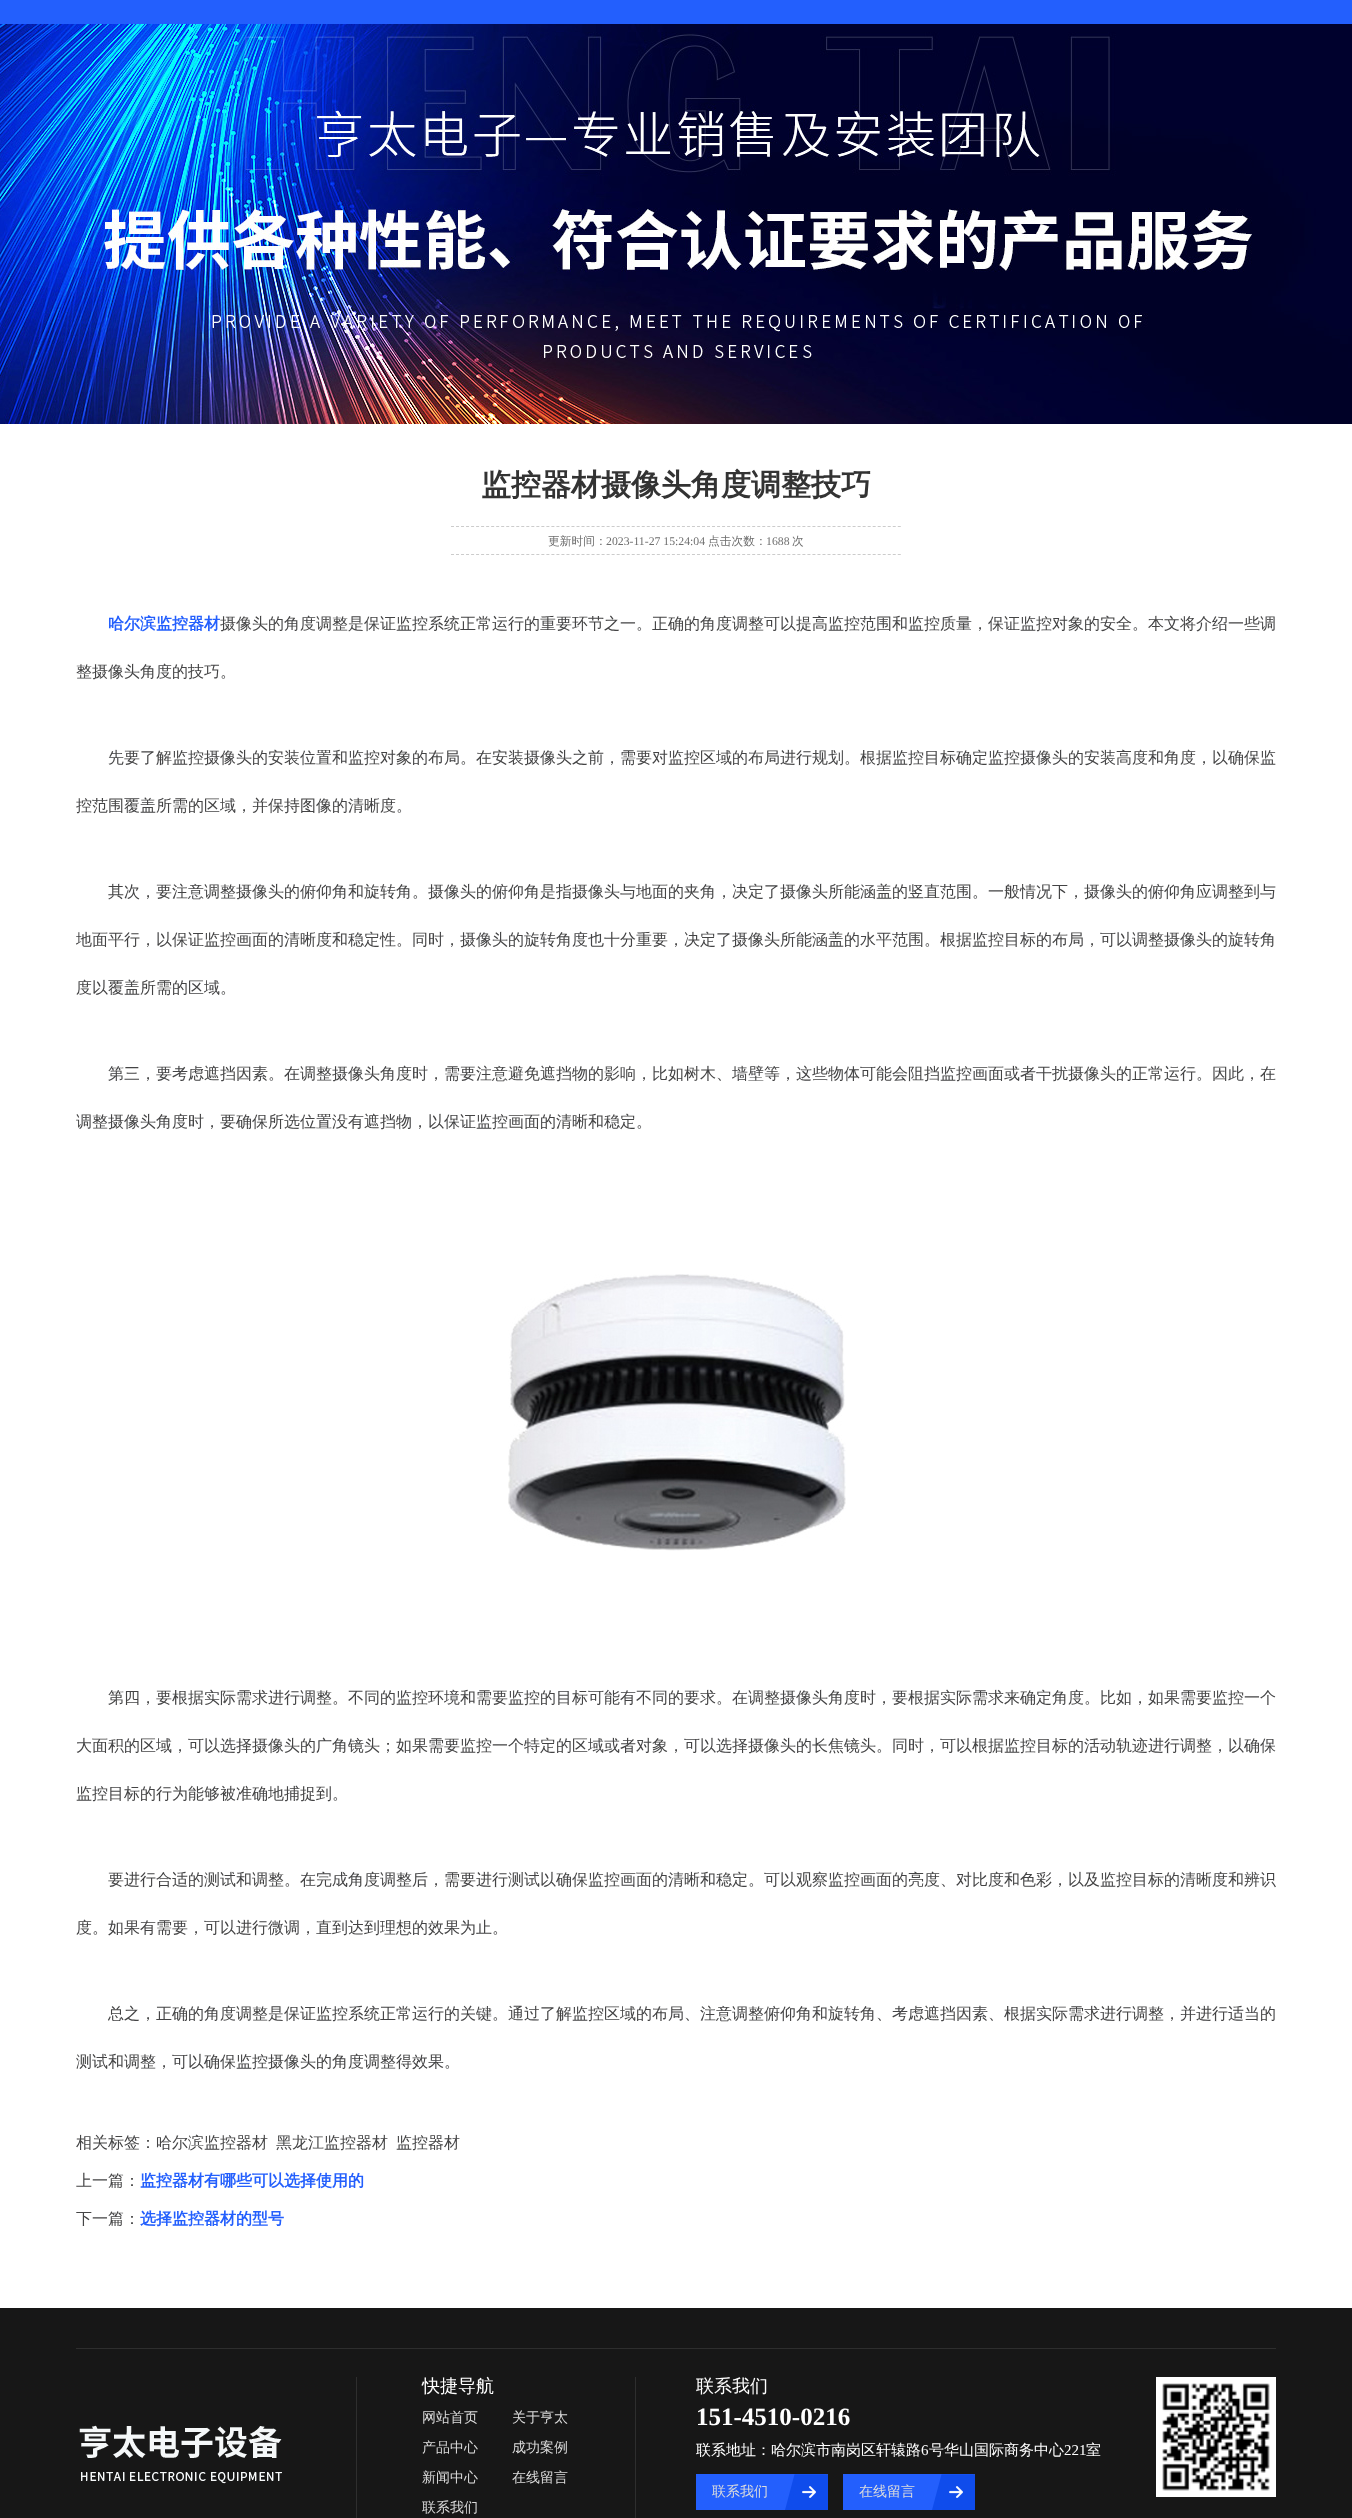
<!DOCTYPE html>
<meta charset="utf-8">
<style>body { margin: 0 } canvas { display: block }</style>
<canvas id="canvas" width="1352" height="2518"></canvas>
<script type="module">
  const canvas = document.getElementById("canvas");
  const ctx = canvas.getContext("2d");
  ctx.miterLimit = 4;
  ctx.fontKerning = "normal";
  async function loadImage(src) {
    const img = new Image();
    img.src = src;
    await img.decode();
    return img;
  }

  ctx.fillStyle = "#ffffff";
  ctx.fillRect(0, 0, 1352, 2518);
  ctx.fillStyle = "#235ffd";
  ctx.fillRect(0, 0, 1352, 24);
  ctx.drawImage(await loadImage("img1.png"), 0, 24, 1352, 400);
  ctx.font = "bold 30px WenQuanYi Zen Hei";
  ctx.fillStyle = "#333333";
  ctx.fillText("监控器材摄像头角度调整技巧", 481, 495);
  ctx.beginPath();
  ctx.moveTo(451, 526.5);
  ctx.lineTo(901, 526.5);
  ctx.strokeStyle = "#cccccc";
  ctx.setLineDash([3, 2.02]);
  ctx.stroke();
  ctx.beginPath();
  ctx.moveTo(451, 554.5);
  ctx.lineTo(901, 554.5);
  ctx.stroke();
  ctx.font = "500 11.75px WenQuanYi Zen Hei";
  ctx.fillStyle = "#6f6f6f";
  ctx.fillText("更新时间：", 548, 545);
  ctx.font = "11.75px Liberation Serif";
  ctx.fillText("2023-11-27 15:24:04", 606, 545);
  ctx.font = "500 11.75px WenQuanYi Zen Hei";
  ctx.fillText("点击次数：", 708, 545);
  ctx.font = "11.75px Liberation Serif";
  ctx.fillText("1688", 766, 545);
  ctx.font = "500 11.75px WenQuanYi Zen Hei";
  ctx.fillText("次", 792, 545);
  ctx.font = "bold 16px WenQuanYi Zen Hei";
  ctx.fillStyle = "#235ffd";
  ctx.fillText("哈尔滨监控器材", 108, 629);
  ctx.font = "500 16px WenQuanYi Zen Hei";
  ctx.fillStyle = "#444445";
  ctx.fillText("摄像头的角度调整是保证监控系统正常运行的重要环节之一。正确的角度调整可以提高监控范围和监控质量，保证监控对象的安全。本文将介绍一些调", 220, 629);
  ctx.fillText("整摄像头角度的技巧。", 76, 677);
  ctx.fillText("先要了解监控摄像头的安装位置和监控对象的布局。在安装摄像头之前，需要对监控区域的布局进行规划。根据监控目标确定监控摄像头的安装高度和角度，以确保监", 108, 763);
  ctx.fillText("控范围覆盖所需的区域，并保持图像的清晰度。", 76, 811);
  ctx.fillText("其次，要注意调整摄像头的俯仰角和旋转角。摄像头的俯仰角是指摄像头与地面的夹角，决定了摄像头所能涵盖的竖直范围。一般情况下，摄像头的俯仰角应调整到与", 108, 897);
  ctx.fillText("地面平行，以保证监控画面的清晰度和稳定性。同时，摄像头的旋转角度也十分重要，决定了摄像头所能涵盖的水平范围。根据监控目标的布局，可以调整摄像头的旋转角", 76, 945);
  ctx.fillText("度以覆盖所需的区域。", 76, 993);
  ctx.fillText("第三，要考虑遮挡因素。在调整摄像头角度时，需要注意避免遮挡物的影响，比如树木、墙壁等，这些物体可能会阻挡监控画面或者干扰摄像头的正常运行。因此，在", 108, 1079);
  ctx.fillText("调整摄像头角度时，要确保所选位置没有遮挡物，以保证监控画面的清晰和稳定。", 76, 1127);
  ctx.drawImage(await loadImage("img2.png"), 508, 1274, 338, 277);
  ctx.fillText("第四，要根据实际需求进行调整。不同的监控环境和需要监控的目标可能有不同的要求。在调整摄像头角度时，要根据实际需求来确定角度。比如，如果需要监控一个", 108, 1703);
  ctx.fillText("大面积的区域，可以选择摄像头的广角镜头；如果需要监控一个特定的区域或者对象，可以选择摄像头的长焦镜头。同时，可以根据监控目标的活动轨迹进行调整，以确保", 76, 1751);
  ctx.fillText("监控目标的行为能够被准确地捕捉到。", 76, 1799);
  ctx.fillText("要进行合适的测试和调整。在完成角度调整后，需要进行测试以确保监控画面的清晰和稳定。可以观察监控画面的亮度、对比度和色彩，以及监控目标的清晰度和辨识", 108, 1885);
  ctx.fillText("度。如果有需要，可以进行微调，直到达到理想的效果为止。", 76, 1933);
  ctx.fillText("总之，正确的角度调整是保证监控系统正常运行的关键。通过了解监控区域的布局、注意调整俯仰角和旋转角、考虑遮挡因素、根据实际需求进行调整，并进行适当的", 108, 2019);
  ctx.fillText("测试和调整，可以确保监控摄像头的角度调整得效果。", 76, 2067);
  ctx.fillText("相关标签：哈尔滨监控器材", 76, 2148);
  ctx.fillText("黑龙江监控器材", 276, 2148);
  ctx.fillText("监控器材", 396, 2148);
  ctx.fillText("上一篇：", 76, 2186);
  ctx.font = "bold 16px WenQuanYi Zen Hei";
  ctx.fillStyle = "#235ffd";
  ctx.fillText("监控器材有哪些可以选择使用的", 140, 2186);
  ctx.font = "500 16px WenQuanYi Zen Hei";
  ctx.fillStyle = "#444445";
  ctx.fillText("下一篇：", 76, 2224);
  ctx.font = "bold 16px WenQuanYi Zen Hei";
  ctx.fillStyle = "#235ffd";
  ctx.fillText("选择监控器材的型号", 140, 2224);
  ctx.fillStyle = "#171717";
  ctx.fillRect(0, 2308, 1352, 210);
  ctx.fillStyle = "#2e2e2e";
  ctx.fillRect(76, 2348, 1200, 1);
  ctx.drawImage(await loadImage("img3.png"), 79, 2425, 203, 59);
  ctx.fillRect(635, 2377, 1, 141);
  ctx.fillRect(356, 2377, 1, 141);
  ctx.font = "500 18px WenQuanYi Zen Hei";
  ctx.fillStyle = "#ffffff";
  ctx.fillText("快捷导航", 422, 2392);
  ctx.font = "500 14px WenQuanYi Zen Hei";
  ctx.fillStyle = "#dcdcdc";
  ctx.fillText("网站首页", 422, 2422);
  ctx.fillText("关于亨太", 512, 2422);
  ctx.fillText("产品中心", 422, 2452);
  ctx.fillText("成功案例", 512, 2452);
  ctx.fillText("新闻中心", 422, 2482);
  ctx.fillText("在线留言", 512, 2482);
  ctx.fillText("联系我们", 422, 2512);
  ctx.font = "500 18px WenQuanYi Zen Hei";
  ctx.fillStyle = "#ffffff";
  ctx.fillText("联系我们", 696, 2392);
  ctx.font = "bold 25px Liberation Serif";
  ctx.fillText("151-4510-0216", 696, 2425);
  ctx.font = "500 15px WenQuanYi Zen Hei";
  ctx.fillText("联系地址：哈尔滨市南岗区轩辕路", 696, 2455);
  ctx.font = "15px Liberation Serif";
  ctx.fillText("6", 921, 2455);
  ctx.font = "500 15px WenQuanYi Zen Hei";
  ctx.fillText("号华山国际商务中心", 929, 2455);
  ctx.font = "15px Liberation Serif";
  ctx.fillText("221", 1064, 2455);
  ctx.font = "500 15px WenQuanYi Zen Hei";
  ctx.fillText("室", 1086, 2455);
  ctx.drawImage(await loadImage("img4.png"), 696, 2474, 132, 36);
  ctx.font = "500 14px WenQuanYi Zen Hei";
  ctx.fillStyle = "#dcdcdc";
  ctx.fillText("联系我们", 712, 2496);
  ctx.drawImage(await loadImage("img4.png"), 843, 2474, 132, 36);
  ctx.fillText("在线留言", 859, 2496);
  ctx.drawImage(await loadImage("img5.png"), 1156, 2377, 120, 120);
</script>
